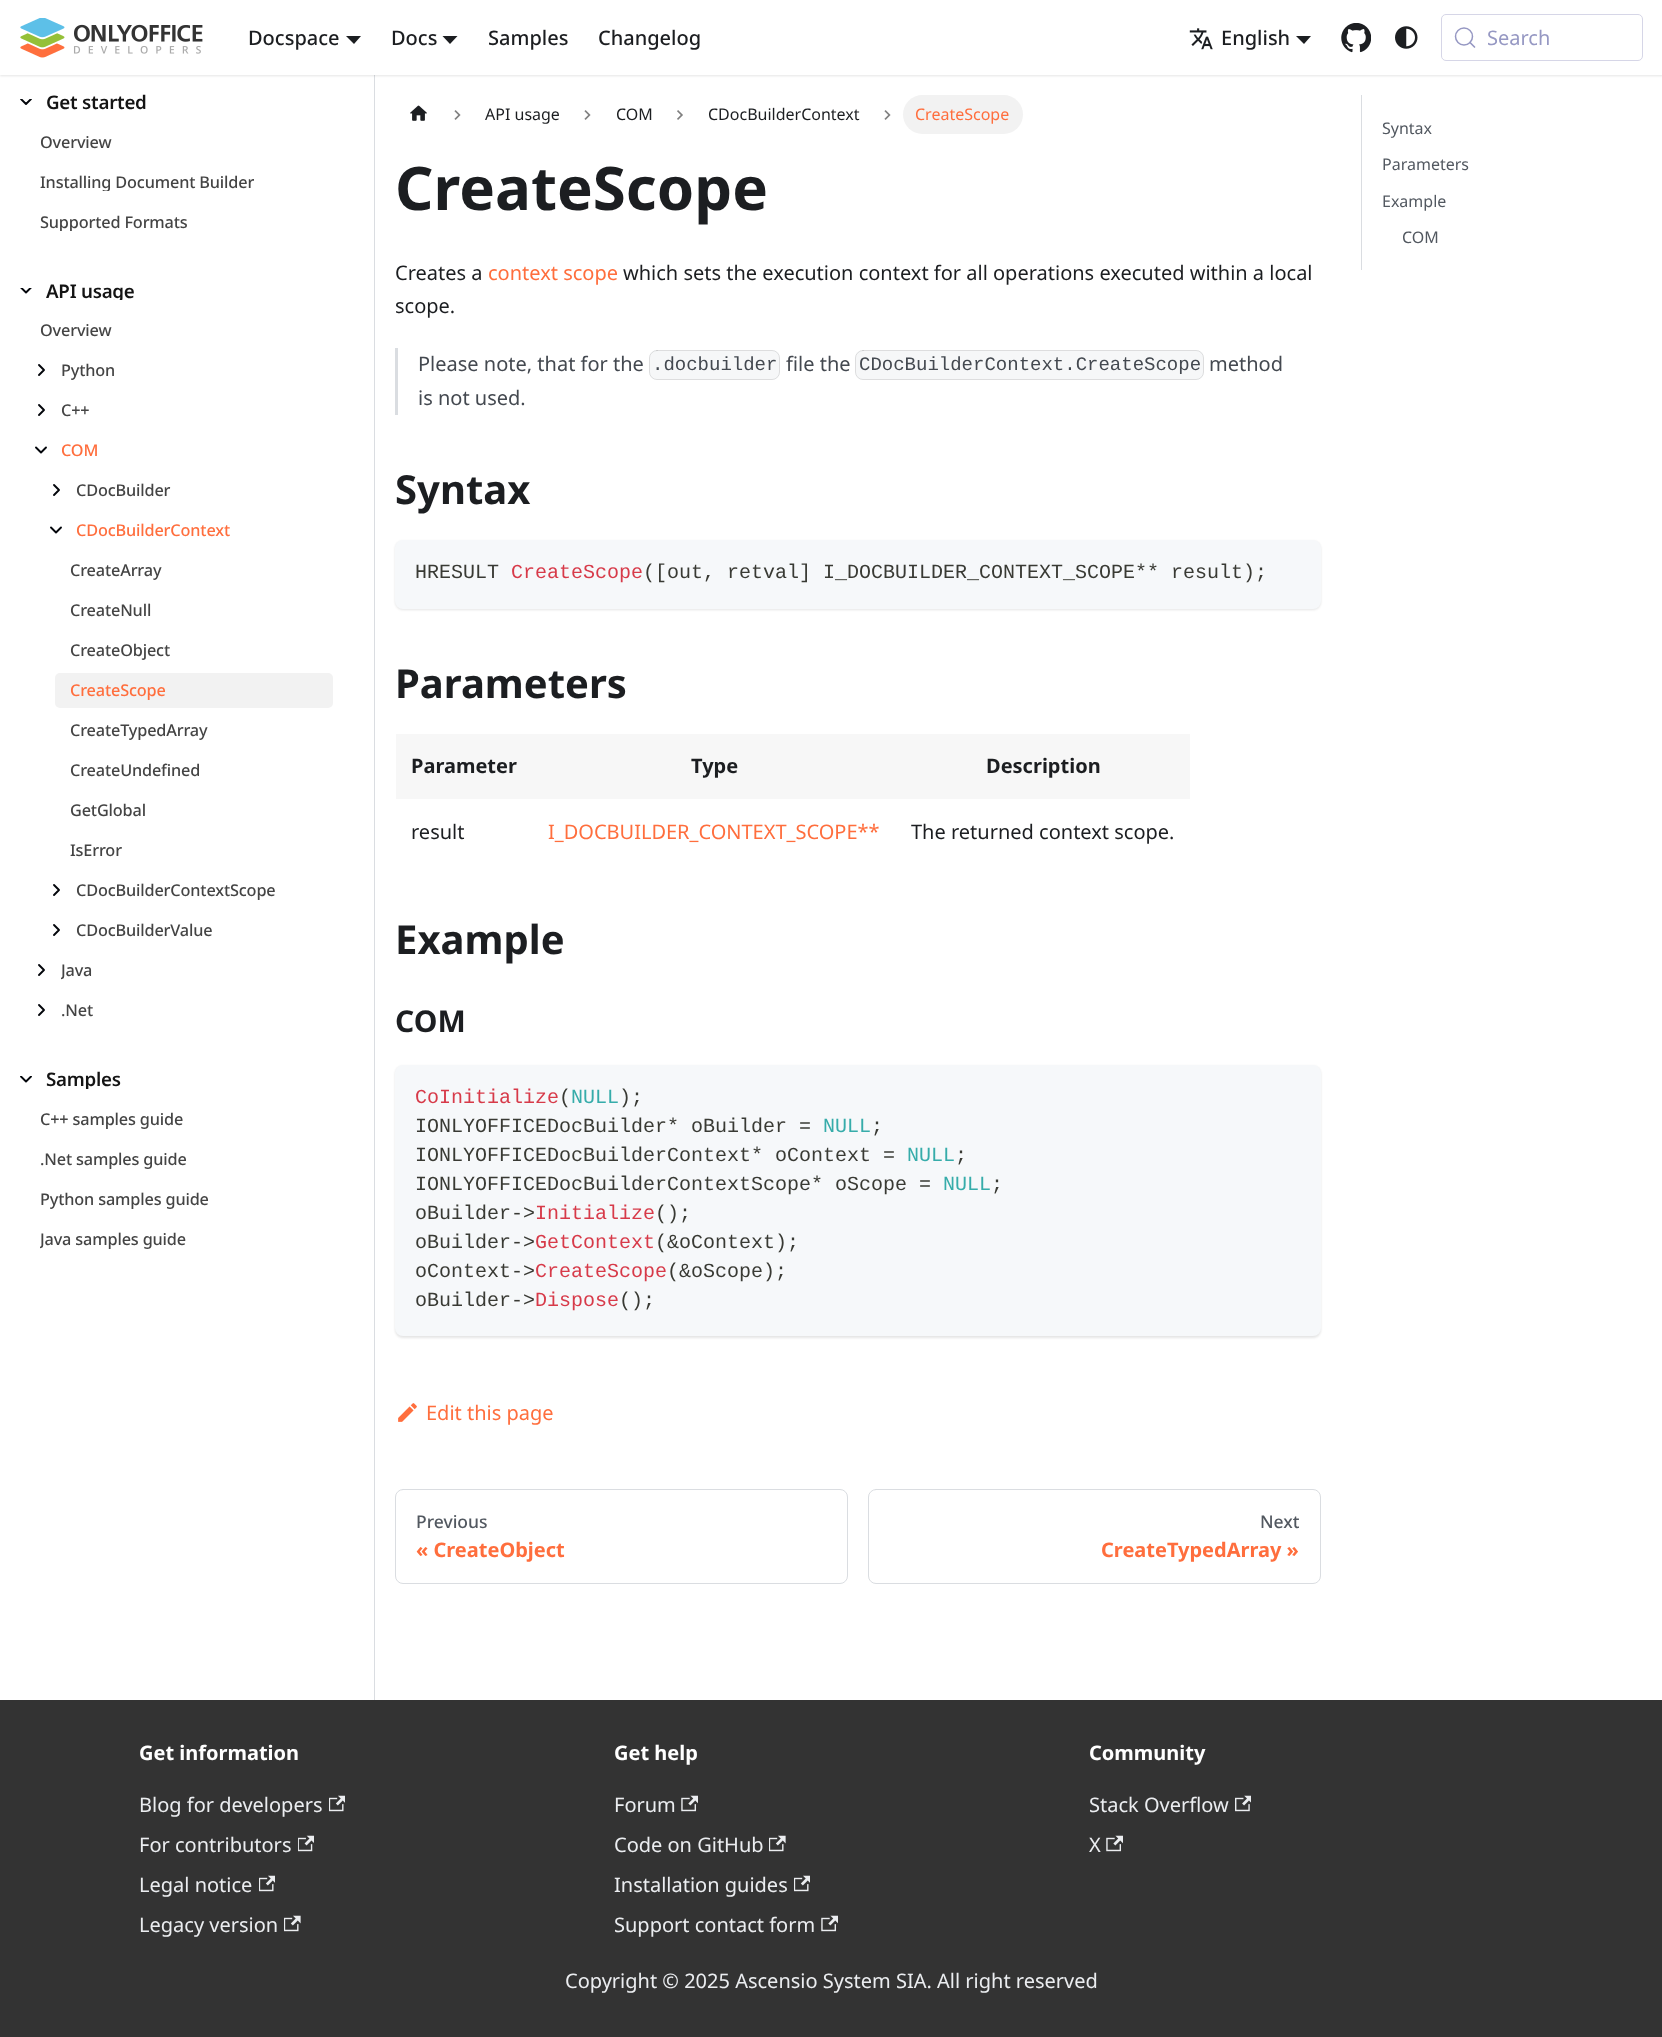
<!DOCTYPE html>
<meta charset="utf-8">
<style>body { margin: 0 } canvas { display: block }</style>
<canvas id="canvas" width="1662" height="2037"></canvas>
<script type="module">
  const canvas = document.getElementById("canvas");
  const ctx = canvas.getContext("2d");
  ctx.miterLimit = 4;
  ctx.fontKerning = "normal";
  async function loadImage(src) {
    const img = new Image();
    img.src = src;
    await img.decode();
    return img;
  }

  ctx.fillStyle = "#ffffff";
  ctx.fillRect(0, 0, 1662, 2037);
  ctx.fillStyle = "#dadde1";
  ctx.fillRect(374, 75, 1, 1625);
  ctx.fillStyle = "rgba(0, 0, 0, 0.1)";
  ctx.filter = "blur(1px)";
  ctx.beginPath();
  ctx.rect(0, 1, 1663, 75);
  ctx.fill();
  ctx.filter = "none";
  ctx.fillStyle = "#ffffff";
  ctx.fillRect(0, 0, 1662, 75);
  ctx.drawImage(await loadImage("img1.png"), 20, 18, 183, 40);
  ctx.font = "500 20px Noto Sans";
  ctx.fillStyle = "#1c1e21";
  ctx.fillText("Docspace", 248, 45);
  ctx.beginPath();
  ctx.moveTo(346, 36);
  ctx.lineTo(361, 36);
  ctx.lineTo(354, 44);
  ctx.closePath();
  ctx.fill();
  ctx.fillText("Docs", 391, 45);
  ctx.beginPath();
  ctx.moveTo(442.5, 36);
  ctx.lineTo(457.5, 36);
  ctx.lineTo(450, 44);
  ctx.closePath();
  ctx.fill();
  ctx.fillText("Samples", 488, 45);
  ctx.fillText("Changelog", 598, 45);
  ctx.drawImage(await loadImage("img2.png"), 1189, 28, 24, 22);
  ctx.fillText("English", 1221, 45);
  ctx.beginPath();
  ctx.moveTo(1296, 36);
  ctx.lineTo(1311, 36);
  ctx.lineTo(1304, 44);
  ctx.closePath();
  ctx.fill();
  ctx.drawImage(await loadImage("img3.png"), 1341, 23, 30, 30);
  ctx.drawImage(await loadImage("img4.png"), 1395, 26, 23, 23);
  ctx.beginPath();
  ctx.roundRect(1441.5, 14.5, 201, 46, 4.5);
  ctx.strokeStyle = "#d6d6e7";
  ctx.stroke();
  ctx.beginPath();
  ctx.arc(1464, 36.5, 8.5, 0, Math.PI * 2);
  ctx.strokeStyle = "#9698c3";
  ctx.lineWidth = 1.5;
  ctx.stroke();
  ctx.beginPath();
  ctx.moveTo(1474.5, 47);
  ctx.lineTo(1470, 42.5);
  ctx.lineWidth = 1.7;
  ctx.lineCap = "round";
  ctx.lineJoin = "round";
  ctx.stroke();
  ctx.font = "20px Noto Sans";
  ctx.fillStyle = "#9698c3";
  ctx.fillText("Search", 1487, 45);
  ctx.save();
  ctx.beginPath();
  ctx.rect(20, 99, 13, 7);
  ctx.clip();
  ctx.beginPath();
  ctx.moveTo(21, 99);
  ctx.lineTo(26, 104);
  ctx.lineTo(31, 99);
  ctx.strokeStyle = "#03060b";
  ctx.lineWidth = 1.9;
  ctx.stroke();
  ctx.restore();
  ctx.letterSpacing = "-0.25px";
  ctx.font = "600 18.75px Noto Sans";
  ctx.fillStyle = "#141414";
  ctx.fillText("Get started", 46, 109);
  ctx.letterSpacing = "-0.15px";
  ctx.font = "500 16.25px Noto Sans";
  ctx.fillStyle = "#444444";
  ctx.fillText("Overview", 40, 148);
  ctx.save();
  ctx.beginPath();
  ctx.rect(40, 171, 214, 20);
  ctx.clip();
  ctx.fillText("Installing Document Builder", 40, 188);
  ctx.restore();
  ctx.save();
  ctx.beginPath();
  ctx.rect(40, 211, 148, 20);
  ctx.clip();
  ctx.fillText("Supported Formats", 40, 228);
  ctx.restore();
  ctx.save();
  ctx.beginPath();
  ctx.rect(20, 288, 13, 7);
  ctx.clip();
  ctx.beginPath();
  ctx.moveTo(21, 287.5);
  ctx.lineTo(26, 292.5);
  ctx.lineTo(31, 287.5);
  ctx.strokeStyle = "#03060b";
  ctx.lineWidth = 1.9;
  ctx.stroke();
  ctx.restore();
  ctx.save();
  ctx.beginPath();
  ctx.rect(46, 281, 287, 19);
  ctx.clip();
  ctx.letterSpacing = "-0.25px";
  ctx.font = "600 18.75px Noto Sans";
  ctx.fillStyle = "#141414";
  ctx.fillText("API usage", 46, 298);
  ctx.restore();
  ctx.fillText("Overview", 40, 336);
  ctx.beginPath();
  ctx.moveTo(39, 375);
  ctx.lineTo(44, 370);
  ctx.lineTo(39, 365);
  ctx.strokeStyle = "#03060b";
  ctx.lineWidth = 1.9;
  ctx.stroke();
  ctx.fillText("Python", 61, 376);
  ctx.beginPath();
  ctx.moveTo(39, 415);
  ctx.lineTo(44, 410);
  ctx.lineTo(39, 405);
  ctx.stroke();
  ctx.fillText("C++", 61, 416);
  ctx.beginPath();
  ctx.moveTo(36, 447.5);
  ctx.lineTo(41, 452.5);
  ctx.lineTo(46, 447.5);
  ctx.stroke();
  ctx.fillStyle = "#ff6e3d";
  ctx.fillText("COM", 61, 456);
  ctx.beginPath();
  ctx.moveTo(54, 495);
  ctx.lineTo(59, 490);
  ctx.lineTo(54, 485);
  ctx.stroke();
  ctx.fillStyle = "#444444";
  ctx.fillText("CDocBuilder", 76, 496);
  ctx.beginPath();
  ctx.moveTo(51, 527.5);
  ctx.lineTo(56, 532.5);
  ctx.lineTo(61, 527.5);
  ctx.stroke();
  ctx.fillStyle = "#ff6e3d";
  ctx.fillText("CDocBuilderContext", 76, 536);
  ctx.fillStyle = "#444444";
  ctx.fillText("CreateArray", 70, 576);
  ctx.fillText("CreateNull", 70, 616);
  ctx.fillText("CreateObject", 70, 656);
  ctx.fillStyle = "#f2f2f2";
  ctx.beginPath();
  ctx.roundRect(55, 673, 278, 35, 5);
  ctx.fill();
  ctx.fillStyle = "#ff6e3d";
  ctx.fillText("CreateScope", 70, 696);
  ctx.fillStyle = "#444444";
  ctx.fillText("CreateTypedArray", 70, 736);
  ctx.fillText("CreateUndefined", 70, 776);
  ctx.fillText("GetGlobal", 70, 816);
  ctx.fillText("IsError", 70, 856);
  ctx.beginPath();
  ctx.moveTo(54, 895);
  ctx.lineTo(59, 890);
  ctx.lineTo(54, 885);
  ctx.stroke();
  ctx.fillText("CDocBuilderContextScope", 76, 896);
  ctx.beginPath();
  ctx.moveTo(54, 935);
  ctx.lineTo(59, 930);
  ctx.lineTo(54, 925);
  ctx.stroke();
  ctx.fillText("CDocBuilderValue", 76, 936);
  ctx.beginPath();
  ctx.moveTo(39, 975);
  ctx.lineTo(44, 970);
  ctx.lineTo(39, 965);
  ctx.stroke();
  ctx.save();
  ctx.beginPath();
  ctx.roundRect(61, 953, 272, 35, 5);
  ctx.clip();
  ctx.fillText("Java", 61, 976);
  ctx.restore();
  ctx.beginPath();
  ctx.moveTo(39, 1015);
  ctx.lineTo(44, 1010);
  ctx.lineTo(39, 1005);
  ctx.stroke();
  ctx.fillText(".Net", 61, 1016);
  ctx.save();
  ctx.beginPath();
  ctx.rect(20, 1076, 13, 8);
  ctx.clip();
  ctx.beginPath();
  ctx.moveTo(21, 1076.5);
  ctx.lineTo(26, 1081.5);
  ctx.lineTo(31, 1076.5);
  ctx.stroke();
  ctx.restore();
  ctx.save();
  ctx.beginPath();
  ctx.rect(46, 1070, 287, 19);
  ctx.clip();
  ctx.letterSpacing = "-0.25px";
  ctx.font = "600 18.75px Noto Sans";
  ctx.fillStyle = "#141414";
  ctx.fillText("Samples", 46, 1086);
  ctx.restore();
  ctx.fillText("C++ samples guide", 40, 1125);
  ctx.fillText(".Net samples guide", 40, 1165);
  ctx.fillText("Python samples guide", 40, 1205);
  ctx.save();
  ctx.beginPath();
  ctx.rect(40, 1229, 146, 20);
  ctx.clip();
  ctx.fillText("Java samples guide", 40, 1245);
  ctx.restore();
  ctx.drawImage(await loadImage("img5.png"), 410, 105, 17, 16);
  ctx.drawImage(await loadImage("img6.png"), 454, 110, 7, 10);
  ctx.letterSpacing = "0px";
  ctx.font = "16px Noto Sans";
  ctx.fillStyle = "#1c1e21";
  ctx.fillText("API usage", 485, 120);
  ctx.drawImage(await loadImage("img6.png"), 584, 110, 7, 10);
  ctx.fillText("COM", 616, 120);
  ctx.drawImage(await loadImage("img7.png"), 677, 110, 6, 10);
  ctx.fillText("CDocBuilderContext", 708, 120);
  ctx.drawImage(await loadImage("img6.png"), 884, 110, 7, 10);
  ctx.fillStyle = "#f2f2f2";
  ctx.beginPath();
  ctx.roundRect(903, 95, 120, 39, 19.5);
  ctx.fill();
  ctx.fillStyle = "#ff6e3d";
  ctx.fillText("CreateScope", 915, 120);
  ctx.font = "bold 60px Noto Sans";
  ctx.fillStyle = "#1c1e21";
  ctx.fillText("CreateScope", 395, 210);
  ctx.font = "20px Noto Sans";
  ctx.fillText("Creates a", 395, 280);
  ctx.fillStyle = "#ff6e3d";
  ctx.fillText("context scope", 488, 280);
  ctx.fillStyle = "#1c1e21";
  ctx.fillText("which sets the execution context for all operations executed within a local", 623, 280);
  ctx.fillText("scope.", 395, 313);
  ctx.fillStyle = "#dadde1";
  ctx.fillRect(395, 348, 3, 67);
  ctx.fillStyle = "#444950";
  ctx.fillText("Please note, that for the", 418, 371);
  ctx.fillStyle = "#f6f7f8";
  ctx.beginPath();
  ctx.roundRect(649, 350, 131, 30, 8);
  ctx.fill();
  ctx.beginPath();
  ctx.roundRect(649.5, 350.5, 130, 29, 7.5);
  ctx.strokeStyle = "rgba(0, 0, 0, 0.1)";
  ctx.lineWidth = 1;
  ctx.lineJoin = "miter";
  ctx.stroke();
  ctx.font = "19px Liberation Mono";
  ctx.fillStyle = "#444950";
  ctx.fillText(".docbuilder", 652, 370);
  ctx.font = "20px Noto Sans";
  ctx.fillText("file the", 786, 371);
  ctx.fillStyle = "#f6f7f8";
  ctx.beginPath();
  ctx.roundRect(855, 350, 349, 30, 8);
  ctx.fill();
  ctx.beginPath();
  ctx.roundRect(855.5, 350.5, 348, 29, 7.5);
  ctx.stroke();
  ctx.font = "19px Liberation Mono";
  ctx.fillStyle = "#444950";
  ctx.fillText("CDocBuilderContext.CreateScope", 859, 370);
  ctx.font = "20px Noto Sans";
  ctx.fillText("method", 1209, 371);
  ctx.fillText("is not used.", 418, 405);
  ctx.font = "bold 40px Noto Sans";
  ctx.fillStyle = "#1c1e21";
  ctx.fillText("Syntax", 395, 504);
  ctx.fillStyle = "rgba(0, 0, 0, 0.1)";
  ctx.filter = "blur(1px)";
  ctx.beginPath();
  ctx.roundRect(395, 541, 926, 69, 8);
  ctx.fill();
  ctx.filter = "none";
  ctx.fillStyle = "#f6f8fa";
  ctx.beginPath();
  ctx.roundRect(395, 540, 926, 69, 8);
  ctx.fill();
  ctx.font = "20px Liberation Mono";
  ctx.fillStyle = "#393a34";
  ctx.fillText("HRESULT", 415, 578);
  ctx.fillStyle = "#d73a49";
  ctx.fillText("CreateScope", 511, 578);
  ctx.fillStyle = "#393a34";
  ctx.fillText("([out, retval] I_DOCBUILDER_CONTEXT_SCOPE** result);", 643, 578);
  ctx.font = "bold 40px Noto Sans";
  ctx.fillStyle = "#1c1e21";
  ctx.fillText("Parameters", 395, 698);
  ctx.fillStyle = "#f7f7f7";
  ctx.fillRect(396, 734, 794, 65);
  ctx.font = "bold 20px Noto Sans";
  ctx.fillStyle = "#1c1e21";
  ctx.fillText("Parameter", 411, 773);
  ctx.fillText("Type", 691, 773);
  ctx.fillText("Description", 986, 773);
  ctx.font = "20px Noto Sans";
  ctx.fillText("result", 411, 839);
  ctx.fillStyle = "#ff6e3d";
  ctx.fillText("I_DOCBUILDER_CONTEXT_SCOPE**", 548, 839);
  ctx.fillStyle = "#1c1e21";
  ctx.fillText("The returned context scope.", 911, 839);
  ctx.font = "bold 40px Noto Sans";
  ctx.fillText("Example", 395, 954);
  ctx.font = "bold 30px Noto Sans";
  ctx.fillText("COM", 395, 1032);
  ctx.fillStyle = "rgba(0, 0, 0, 0.1)";
  ctx.filter = "blur(1px)";
  ctx.beginPath();
  ctx.roundRect(395, 1066, 926, 272, 8);
  ctx.fill();
  ctx.filter = "none";
  ctx.fillStyle = "#f6f8fa";
  ctx.beginPath();
  ctx.roundRect(395, 1065, 926, 271, 8);
  ctx.fill();
  ctx.font = "20px Liberation Mono";
  ctx.fillStyle = "#d73a49";
  ctx.fillText("CoInitialize", 415, 1103);
  ctx.fillStyle = "#393a34";
  ctx.fillText("(", 559, 1103);
  ctx.fillStyle = "#36acaa";
  ctx.fillText("NULL", 571, 1103);
  ctx.fillStyle = "#393a34";
  ctx.fillText(");", 619, 1103);
  ctx.fillText("IONLYOFFICEDocBuilder* oBuilder =", 415, 1132);
  ctx.fillStyle = "#36acaa";
  ctx.fillText("NULL", 823, 1132);
  ctx.fillStyle = "#393a34";
  ctx.fillText(";", 871, 1132);
  ctx.fillText("IONLYOFFICEDocBuilderContext* oContext =", 415, 1161);
  ctx.fillStyle = "#36acaa";
  ctx.fillText("NULL", 907, 1161);
  ctx.fillStyle = "#393a34";
  ctx.fillText(";", 955, 1161);
  ctx.fillText("IONLYOFFICEDocBuilderContextScope* oScope =", 415, 1190);
  ctx.fillStyle = "#36acaa";
  ctx.fillText("NULL", 943, 1190);
  ctx.fillStyle = "#393a34";
  ctx.fillText(";", 991, 1190);
  ctx.fillText("oBuilder->", 415, 1219);
  ctx.fillStyle = "#d73a49";
  ctx.fillText("Initialize", 535, 1219);
  ctx.fillStyle = "#393a34";
  ctx.fillText("();", 655, 1219);
  ctx.fillText("oBuilder->", 415, 1248);
  ctx.fillStyle = "#d73a49";
  ctx.fillText("GetContext", 535, 1248);
  ctx.fillStyle = "#393a34";
  ctx.fillText("(&oContext);", 655, 1248);
  ctx.fillText("oContext->", 415, 1277);
  ctx.fillStyle = "#d73a49";
  ctx.fillText("CreateScope", 535, 1277);
  ctx.fillStyle = "#393a34";
  ctx.fillText("(&oScope);", 667, 1277);
  ctx.fillText("oBuilder->", 415, 1306);
  ctx.fillStyle = "#d73a49";
  ctx.fillText("Dispose", 535, 1306);
  ctx.fillStyle = "#393a34";
  ctx.fillText("();", 619, 1306);
  ctx.drawImage(await loadImage("img8.png"), 398, 1403, 19, 19);
  ctx.font = "20px Noto Sans";
  ctx.fillStyle = "#ff6e3d";
  ctx.fillText("Edit this page", 426, 1420);
  ctx.beginPath();
  ctx.roundRect(395.5, 1489.5, 452, 94, 7.5);
  ctx.strokeStyle = "#dadde1";
  ctx.stroke();
  ctx.font = "500 17.5px Noto Sans";
  ctx.fillStyle = "#525860";
  ctx.fillText("Previous", 416, 1528);
  ctx.font = "bold 20px Noto Sans";
  ctx.fillStyle = "#ff6e3d";
  ctx.fillText("« CreateObject", 416, 1557);
  ctx.beginPath();
  ctx.roundRect(868.5, 1489.5, 452, 94, 7.5);
  ctx.stroke();
  ctx.font = "500 17.5px Noto Sans";
  ctx.fillStyle = "#525860";
  ctx.fillText("Next", 1260, 1528);
  ctx.font = "bold 20px Noto Sans";
  ctx.fillStyle = "#ff6e3d";
  ctx.fillText("CreateTypedArray »", 1101, 1557);
  ctx.fillStyle = "#dadde1";
  ctx.fillRect(1361, 95, 1, 175);
  ctx.font = "16px Noto Sans";
  ctx.fillStyle = "#525860";
  ctx.fillText("Syntax", 1382, 134);
  ctx.fillText("Parameters", 1382, 170);
  ctx.fillText("Example", 1382, 207);
  ctx.fillText("COM", 1402, 243);
  ctx.fillStyle = "#333333";
  ctx.fillRect(0, 1700, 1662, 337);
  ctx.font = "bold 20px Noto Sans";
  ctx.fillStyle = "#ffffff";
  ctx.fillText("Get information", 139, 1760);
  ctx.font = "20px Noto Sans";
  ctx.fillStyle = "#ebedf0";
  ctx.fillText("Blog for developers", 139, 1812);
  ctx.drawImage(await loadImage("img9.png"), 329, 1795, 16, 17);
  ctx.fillText("For contributors", 139, 1852);
  ctx.drawImage(await loadImage("img10.png"), 298, 1835, 16, 17);
  ctx.fillText("Legal notice", 139, 1892);
  ctx.drawImage(await loadImage("img9.png"), 259, 1875, 16, 17);
  ctx.fillText("Legacy version", 139, 1932);
  ctx.drawImage(await loadImage("img11.png"), 284, 1915, 17, 17);
  ctx.font = "bold 20px Noto Sans";
  ctx.fillStyle = "#ffffff";
  ctx.fillText("Get help", 614, 1760);
  ctx.font = "20px Noto Sans";
  ctx.fillStyle = "#ebedf0";
  ctx.fillText("Forum", 614, 1812);
  ctx.drawImage(await loadImage("img12.png"), 681, 1795, 17, 17);
  ctx.fillText("Code on GitHub", 614, 1852);
  ctx.drawImage(await loadImage("img11.png"), 769, 1835, 17, 17);
  ctx.fillText("Installation guides", 614, 1892);
  ctx.drawImage(await loadImage("img9.png"), 794, 1875, 16, 17);
  ctx.fillText("Support contact form", 614, 1932);
  ctx.drawImage(await loadImage("img12.png"), 821, 1915, 17, 17);
  ctx.font = "bold 20px Noto Sans";
  ctx.fillStyle = "#ffffff";
  ctx.fillText("Community", 1089, 1760);
  ctx.font = "20px Noto Sans";
  ctx.fillStyle = "#ebedf0";
  ctx.fillText("Stack Overflow", 1089, 1812);
  ctx.drawImage(await loadImage("img13.png"), 1235, 1795, 16, 17);
  ctx.fillText("X", 1089, 1852);
  ctx.drawImage(await loadImage("img12.png"), 1106, 1835, 17, 17);
  ctx.fillText("Copyright © 2025 Ascensio System SIA. All right reserved", 565, 1988);
</script>
